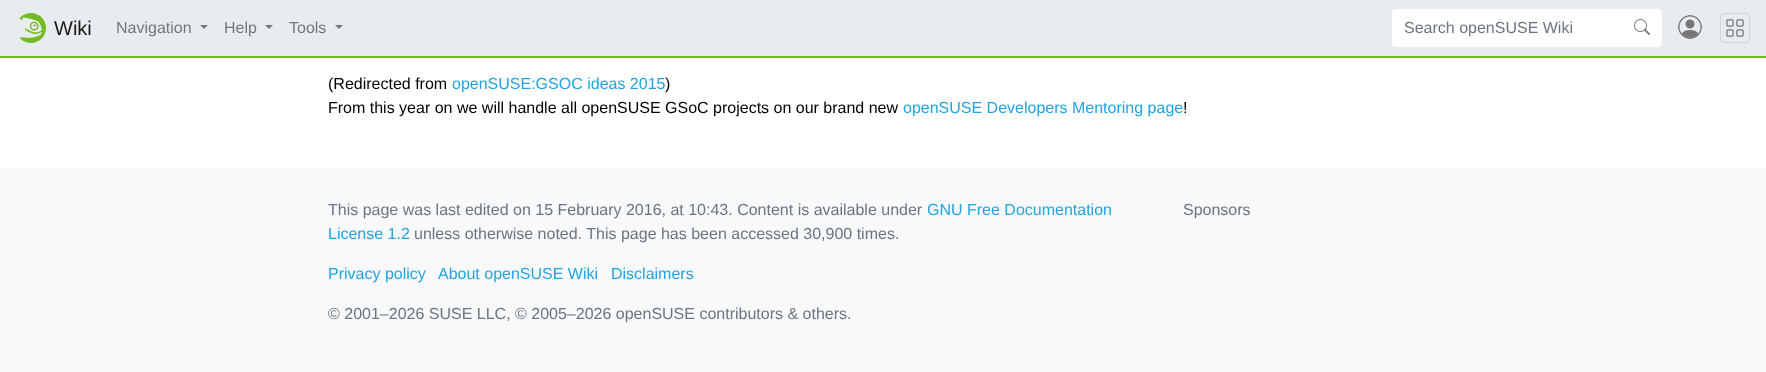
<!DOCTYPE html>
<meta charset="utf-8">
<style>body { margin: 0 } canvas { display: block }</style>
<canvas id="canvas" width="1766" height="372"></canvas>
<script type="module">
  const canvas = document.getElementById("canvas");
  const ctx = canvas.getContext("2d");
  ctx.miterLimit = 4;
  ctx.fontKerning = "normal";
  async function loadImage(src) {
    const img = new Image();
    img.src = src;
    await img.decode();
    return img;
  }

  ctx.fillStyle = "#ffffff";
  ctx.fillRect(0, 0, 1766, 372);
  ctx.fillStyle = "#e9ecef";
  ctx.fillRect(0, 0, 1766, 56);
  ctx.fillStyle = "#73ba25";
  ctx.fillRect(0, 56, 1766, 2);
  ctx.drawImage(await loadImage("img1.png"), 19, 13, 27, 30);
  ctx.font = "20px Liberation Sans";
  ctx.fillStyle = "#171818";
  ctx.fillText("Wiki", 54, 35);
  ctx.font = "16px Liberation Sans";
  ctx.fillStyle = "#757678";
  ctx.fillText("Navigation", 116, 33);
  ctx.beginPath();
  ctx.moveTo(200, 25);
  ctx.lineTo(208, 25);
  ctx.lineTo(204, 29);
  ctx.closePath();
  ctx.fill();
  ctx.fillText("Help", 224, 33);
  ctx.beginPath();
  ctx.moveTo(265, 25);
  ctx.lineTo(273, 25);
  ctx.lineTo(269, 29);
  ctx.closePath();
  ctx.fill();
  ctx.fillText("Tools", 289, 33);
  ctx.beginPath();
  ctx.moveTo(335, 25);
  ctx.lineTo(343, 25);
  ctx.lineTo(339, 29);
  ctx.closePath();
  ctx.fill();
  ctx.fillStyle = "#ffffff";
  ctx.beginPath();
  ctx.roundRect(1392, 9, 231, 38, [4, 0, 0, 4]);
  ctx.fill();
  ctx.fillStyle = "#6c757d";
  ctx.fillText("Search openSUSE Wiki", 1404, 33);
  ctx.fillStyle = "#ffffff";
  ctx.beginPath();
  ctx.roundRect(1622, 9, 40, 38, [0, 4, 4, 0]);
  ctx.fill();
  ctx.drawImage(await loadImage("img2.png"), 1634, 19, 16, 16);
  ctx.drawImage(await loadImage("img3.png"), 1678, 15, 24, 24);
  ctx.beginPath();
  ctx.roundRect(1720.5, 13.5, 29, 29, 3.5);
  ctx.strokeStyle = "#d2d4d7";
  ctx.stroke();
  ctx.drawImage(await loadImage("img4.png"), 1726, 19, 18, 18);
  ctx.fillStyle = "#000000";
  ctx.fillText("(Redirected from", 328, 89);
  ctx.fillStyle = "#21a4df";
  ctx.fillText("openSUSE:GSOC ideas 2015", 452, 89);
  ctx.fillStyle = "#000000";
  ctx.fillText(")", 665, 89);
  ctx.fillText("From this year on we will handle all openSUSE GSoC projects on our brand new", 328, 113);
  ctx.fillStyle = "#21a4df";
  ctx.fillText("openSUSE Developers Mentoring page", 903, 113);
  ctx.fillStyle = "#000000";
  ctx.fillText("!", 1183, 113);
  ctx.fillStyle = "#f8f9fa";
  ctx.fillRect(0, 168, 1766, 204);
  ctx.fillStyle = "#6c757d";
  ctx.fillText("This page was last edited on 15 February 2016, at 10:43. Content is available under", 328, 215);
  ctx.fillStyle = "#21a4df";
  ctx.fillText("GNU Free Documentation", 927, 215);
  ctx.fillText("License 1.2", 328, 239);
  ctx.fillStyle = "#6c757d";
  ctx.fillText("unless otherwise noted. This page has been accessed 30,900 times.", 414, 239);
  ctx.fillStyle = "#21a4df";
  ctx.fillText("Privacy policy", 328, 279);
  ctx.fillText("About openSUSE Wiki", 438, 279);
  ctx.fillText("Disclaimers", 611, 279);
  ctx.fillStyle = "#6c757d";
  ctx.fillText("© 2001–2026 SUSE LLC, © 2005–2026 openSUSE contributors & others.", 328, 319);
  ctx.fillText("Sponsors", 1183, 215);
</script>
